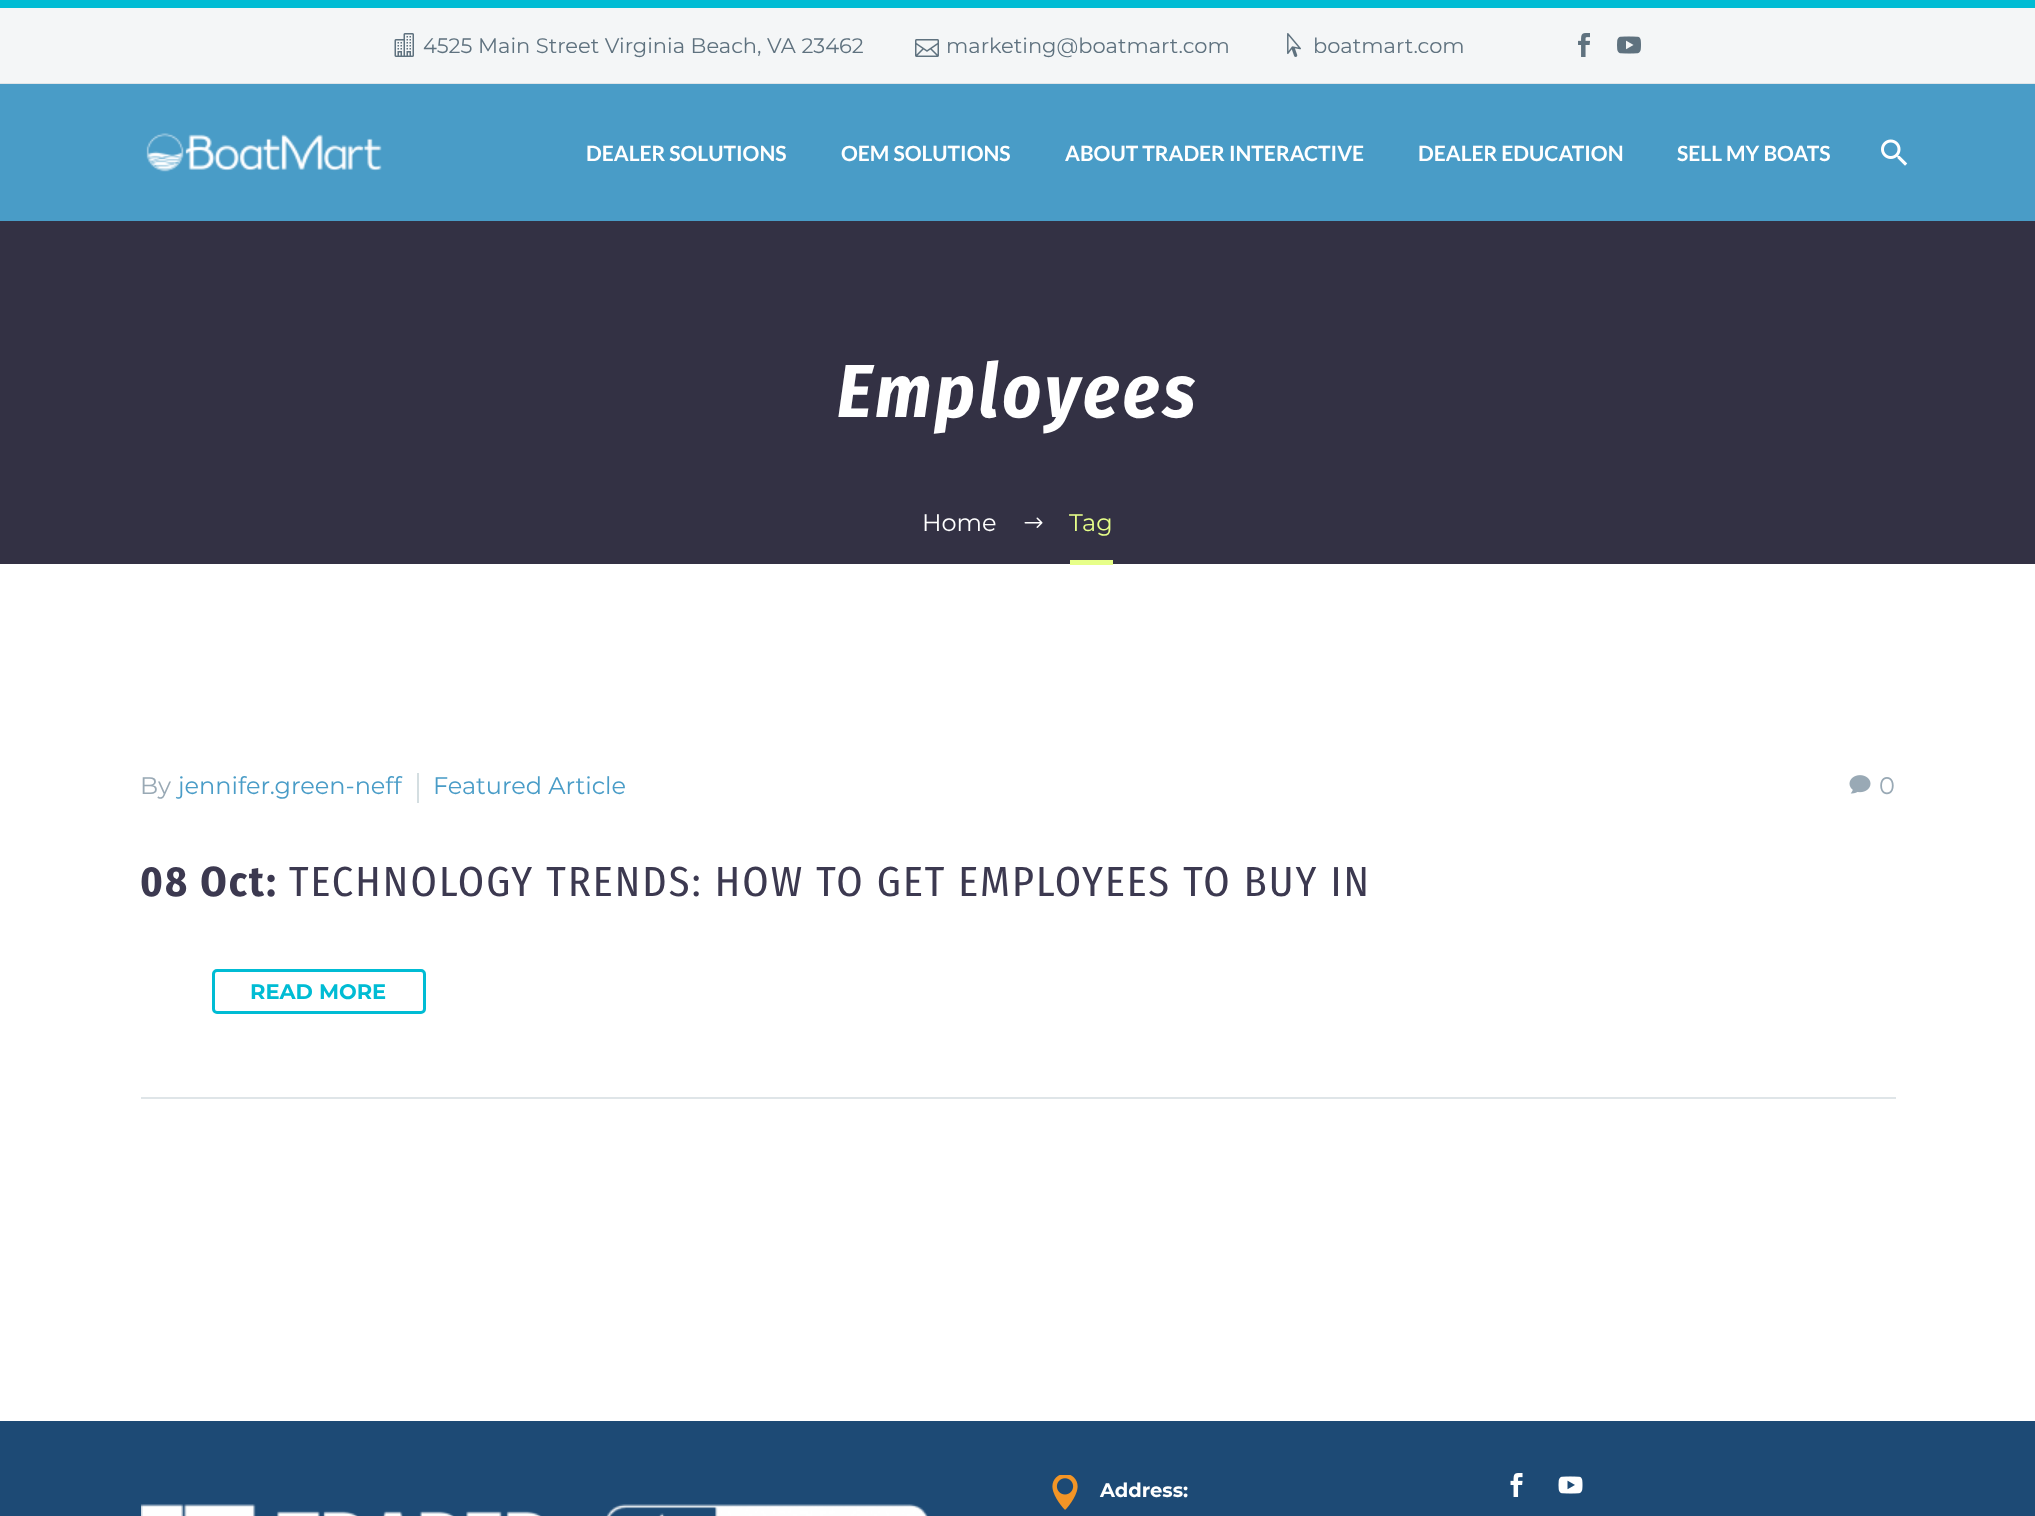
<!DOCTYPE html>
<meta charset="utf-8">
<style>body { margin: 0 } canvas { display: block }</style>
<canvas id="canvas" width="2035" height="1516"></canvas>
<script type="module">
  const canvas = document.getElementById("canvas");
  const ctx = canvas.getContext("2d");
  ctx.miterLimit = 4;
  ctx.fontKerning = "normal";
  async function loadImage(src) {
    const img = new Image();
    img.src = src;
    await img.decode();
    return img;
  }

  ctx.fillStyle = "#ffffff";
  ctx.fillRect(0, 0, 2035, 1516);
  ctx.fillStyle = "#f4f6f7";
  ctx.fillRect(0, 8, 2035, 75);
  ctx.fillStyle = "#00bcd4";
  ctx.fillRect(0, 0, 2035, 8);
  ctx.fillStyle = "#dfe5e8";
  ctx.fillRect(0, 83, 2035, 1);
  ctx.drawImage(await loadImage("img1.png"), 394, 33, 20, 24);
  ctx.font = "21px Montserrat";
  ctx.fillStyle = "#5f727f";
  ctx.fillText("4525 Main Street Virginia Beach, VA 23462", 423, 53);
  ctx.drawImage(await loadImage("img2.png"), 915, 39, 24, 18);
  ctx.fillText("marketing@boatmart.com", 946, 53);
  ctx.drawImage(await loadImage("img3.png"), 1287, 33, 14, 24);
  ctx.fillText("boatmart.com", 1313, 53);
  ctx.drawImage(await loadImage("img4.png"), 1578, 33, 12, 24);
  ctx.drawImage(await loadImage("img5.png"), 1617, 36, 24, 18);
  ctx.fillStyle = "#499cc7";
  ctx.fillRect(0, 84, 2035, 137);
  ctx.drawImage(await loadImage("img6.png"), 146, 133, 236, 39);
  ctx.font = "bold 21px Lato";
  ctx.fillStyle = "#ffffff";
  ctx.fillText("DEALER SOLUTIONS", 586, 161);
  ctx.fillText("OEM SOLUTIONS", 841, 161);
  ctx.fillText("ABOUT TRADER INTERACTIVE", 1065, 161);
  ctx.fillText("DEALER EDUCATION", 1418, 161);
  ctx.fillText("SELL MY BOATS", 1677, 161);
  ctx.drawImage(await loadImage("img7.png"), 1881, 139, 27, 27);
  ctx.fillStyle = "#333144";
  ctx.fillRect(0, 221, 2035, 343);
  ctx.letterSpacing = "3.75px";
  ctx.font = "italic bold 75px Fira Sans Condensed";
  ctx.fillStyle = "#ffffff";
  ctx.fillText("Employees", 837, 417);
  ctx.letterSpacing = "0px";
  ctx.font = "24px Montserrat";
  ctx.fillText("Home", 922, 531);
  ctx.drawImage(await loadImage("img8.png"), 1024, 517, 19, 11);
  ctx.fillStyle = "#e7ff89";
  ctx.fillRect(1070, 560, 43, 5);
  ctx.fillText("Tag", 1069, 531);
  ctx.fillStyle = "#dfe5e8";
  ctx.fillRect(141, 1097, 1755, 2);
  ctx.fillStyle = "#99a9b5";
  ctx.fillText("By", 140, 794);
  ctx.fillStyle = "#499cc7";
  ctx.fillText("jennifer.green-neff", 178, 794);
  ctx.fillStyle = "#d4dee1";
  ctx.fillRect(417, 773, 2, 30);
  ctx.fillStyle = "#499cc7";
  ctx.fillText("Featured Article", 433, 794);
  ctx.drawImage(await loadImage("img9.png"), 1849, 775, 22, 19);
  ctx.fillStyle = "#99a9b5";
  ctx.fillText("0", 1879, 794);
  ctx.letterSpacing = "2.1px";
  ctx.font = "bold 42px Fira Sans Condensed";
  ctx.fillStyle = "#3c3950";
  ctx.fillText("08 Oct:", 140, 896);
  ctx.font = "42px Fira Sans Condensed";
  ctx.fillText("TECHNOLOGY TRENDS: HOW TO GET EMPLOYEES TO BUY IN", 289, 896);
  ctx.beginPath();
  ctx.roundRect(213.5, 970.5, 211, 42, 3.5);
  ctx.strokeStyle = "#00bcd4";
  ctx.lineWidth = 3;
  ctx.stroke();
  ctx.letterSpacing = "0px";
  ctx.font = "bold 21px 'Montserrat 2'";
  ctx.fillStyle = "#00bcd4";
  ctx.fillText("READ MORE", 250, 999);
  ctx.fillStyle = "#1d4a75";
  ctx.fillRect(0, 1421, 2035, 95);
  ctx.drawImage(await loadImage("img10.png"), 1052, 1475, 13, 35);
  ctx.drawImage(await loadImage("img11.png"), 1065, 1475, 13, 35);
  ctx.font = "bold 19.5px Montserrat";
  ctx.fillStyle = "#ffffff";
  ctx.fillText("Address:", 1100, 1497);
  ctx.drawImage(await loadImage("img12.png"), 1510, 1473, 13, 24);
  ctx.drawImage(await loadImage("img13.png"), 1558, 1476, 25, 18);
  ctx.drawImage(await loadImage("img14.png"), 141, 1504, 787, 12);
</script>
